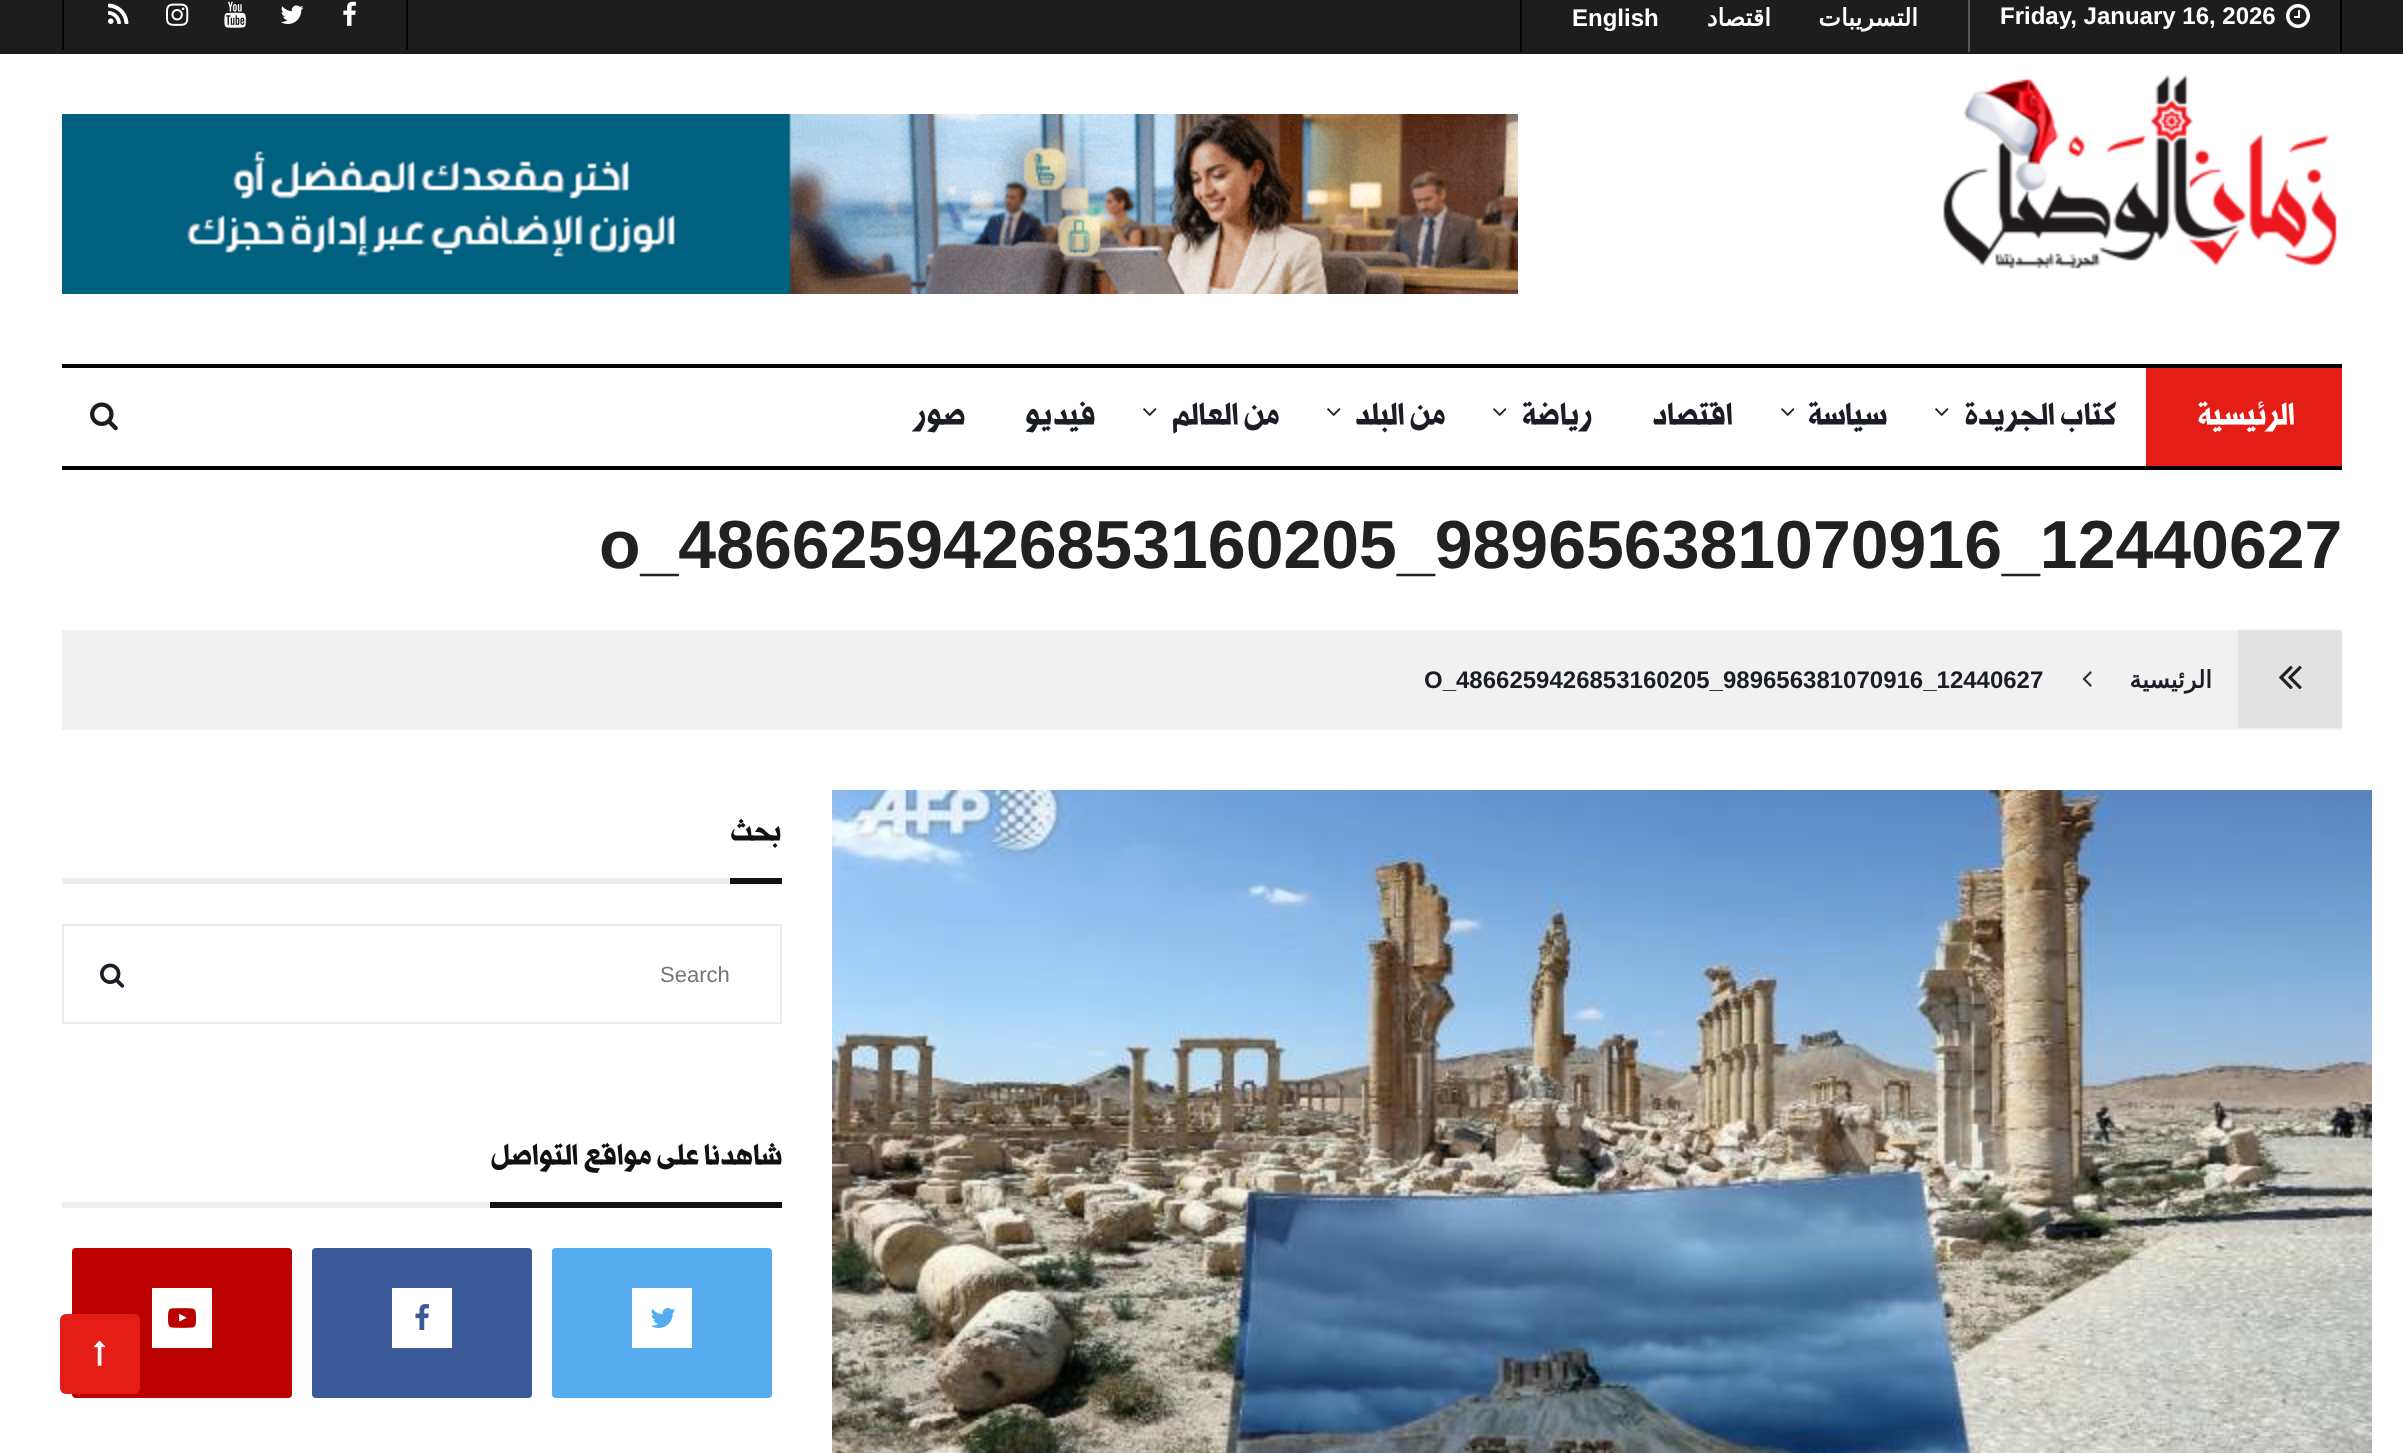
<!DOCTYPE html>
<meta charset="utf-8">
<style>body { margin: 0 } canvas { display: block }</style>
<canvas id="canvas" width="2403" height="1453"></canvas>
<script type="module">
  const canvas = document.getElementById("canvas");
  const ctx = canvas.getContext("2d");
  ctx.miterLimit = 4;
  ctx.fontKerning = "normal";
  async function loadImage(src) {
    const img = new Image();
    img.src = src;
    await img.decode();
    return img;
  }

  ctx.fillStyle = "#ffffff";
  ctx.fillRect(0, 0, 2403, 1453);
  ctx.fillStyle = "#1d1d1d";
  ctx.fillRect(0, 0, 2403, 54);
  ctx.fillStyle = "#000000";
  ctx.fillRect(62, 0, 2, 50);
  ctx.fillRect(406, 0, 2, 50);
  ctx.drawImage(await loadImage("img1.png"), 108, 3, 21, 21);
  ctx.drawImage(await loadImage("img2.png"), 166, 3, 23, 23);
  ctx.drawImage(await loadImage("img3.png"), 224, 1, 22, 27);
  ctx.drawImage(await loadImage("img4.png"), 280, 5, 24, 19);
  ctx.drawImage(await loadImage("img5.png"), 343, 1, 13, 25);
  ctx.fillRect(2340, 0, 2, 52);
  ctx.fillRect(1520, 0, 2, 52);
  ctx.font = "bold 24px Liberation Sans";
  ctx.fillStyle = "#ffffff";
  ctx.fillText("English", 1572, 26);
  ctx.direction = "rtl";
  ctx.font = "bold 24px DejaVu Sans";
  ctx.fillText("اقتصاد", 1771, 26);
  ctx.fillText("التسريبات", 1918, 26);
  ctx.fillStyle = "#565656";
  ctx.fillRect(1968, 0, 2, 52);
  ctx.direction = "ltr";
  ctx.font = "bold 24px Liberation Sans";
  ctx.fillStyle = "#ffffff";
  ctx.fillText("Friday, January 16, 2026", 2000, 24);
  ctx.drawImage(await loadImage("img6.png"), 2286, 4, 24, 24);
  ctx.drawImage(await loadImage("img7.png"), 62, 114, 1456, 180);
  ctx.drawImage(await loadImage("img8.png"), 1943, 75, 394, 194);
  ctx.fillStyle = "#000000";
  ctx.fillRect(62, 364, 2280, 4);
  ctx.fillRect(62, 466, 2280, 4);
  ctx.drawImage(await loadImage("img9.png"), 90, 402, 28, 29);
  ctx.direction = "rtl";
  ctx.font = "900 34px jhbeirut";
  ctx.fillStyle = "#1b1d25";
  ctx.fillText("صور", 966, 424);
  ctx.fillText("فيديو", 1096, 424);
  ctx.drawImage(await loadImage("img10.png"), 1143, 408, 14, 8);
  ctx.fillText("من العالم", 1280, 424);
  ctx.drawImage(await loadImage("img10.png"), 1327, 408, 14, 8);
  ctx.fillText("من البلد", 1446, 424);
  ctx.drawImage(await loadImage("img10.png"), 1493, 408, 14, 8);
  ctx.fillText("رياضة", 1593, 424);
  ctx.fillText("اقتصاد", 1733, 424);
  ctx.drawImage(await loadImage("img10.png"), 1781, 408, 14, 8);
  ctx.fillText("سياسة", 1887, 424);
  ctx.drawImage(await loadImage("img10.png"), 1935, 408, 14, 8);
  ctx.fillText("كتاب الجريدة", 2117, 424);
  ctx.fillStyle = "#e51d17";
  ctx.fillRect(2146, 368, 196, 98);
  ctx.fillStyle = "#ffffff";
  ctx.fillText("الرئيسية", 2295, 424);
  ctx.direction = "ltr";
  ctx.font = "bold 68px Liberation Sans";
  ctx.fillStyle = "#212121";
  ctx.fillText("o_4866259426853160205_989656381070916_12440627", 599, 568);
  ctx.fillStyle = "#f1f1f1";
  ctx.fillRect(62, 630, 2280, 100);
  ctx.font = "bold 24px Liberation Sans";
  ctx.fillStyle = "#1b1d25";
  ctx.fillText("O_4866259426853160205_989656381070916_12440627", 1424, 688);
  ctx.drawImage(await loadImage("img11.png"), 2082, 671, 10, 16);
  ctx.direction = "rtl";
  ctx.font = "bold 24px DejaVu Sans";
  ctx.fillText("الرئيسية", 2212, 688);
  ctx.fillStyle = "#e2e2e2";
  ctx.fillRect(2238, 630, 104, 98);
  ctx.drawImage(await loadImage("img12.png"), 2279, 665, 23, 25);
  ctx.fillStyle = "#eeeeee";
  ctx.fillRect(62, 878, 668, 6);
  ctx.font = "900 32px jhbeirut";
  ctx.fillStyle = "#111111";
  ctx.fillText("بحث", 782, 840);
  ctx.fillRect(730, 878, 52, 6);
  ctx.strokeStyle = "#eaeaea";
  ctx.lineWidth = 2;
  ctx.strokeRect(63, 925, 718, 98);
  ctx.drawImage(await loadImage("img13.png"), 100, 963, 25, 25);
  ctx.direction = "ltr";
  ctx.font = "22px Liberation Sans";
  ctx.fillStyle = "#757575";
  ctx.fillText("Search", 660, 982);
  ctx.fillStyle = "#eeeeee";
  ctx.fillRect(62, 1202, 428, 6);
  ctx.direction = "rtl";
  ctx.font = "900 32px jhbeirut";
  ctx.fillStyle = "#111111";
  ctx.fillText("شاهدنا على مواقع التواصل", 782, 1164);
  ctx.fillRect(490, 1202, 292, 6);
  ctx.fillStyle = "#bb0000";
  ctx.beginPath();
  ctx.roundRect(72, 1248, 220, 150, 4);
  ctx.fill();
  ctx.fillStyle = "#ffffff";
  ctx.fillRect(152, 1288, 60, 60);
  ctx.drawImage(await loadImage("img14.png"), 168, 1308, 28, 20);
  ctx.fillStyle = "#3b5998";
  ctx.beginPath();
  ctx.roundRect(312, 1248, 220, 150, 4);
  ctx.fill();
  ctx.fillStyle = "#ffffff";
  ctx.fillRect(392, 1288, 60, 60);
  ctx.drawImage(await loadImage("img15.png"), 415, 1304, 14, 26);
  ctx.fillStyle = "#55acee";
  ctx.beginPath();
  ctx.roundRect(552, 1248, 220, 150, 4);
  ctx.fill();
  ctx.fillStyle = "#ffffff";
  ctx.fillRect(632, 1288, 60, 60);
  ctx.drawImage(await loadImage("img16.png"), 650, 1308, 26, 20);
  ctx.drawImage(await loadImage("img17.png"), 832, 790, 1540, 663);
  ctx.fillStyle = "#e51d17";
  ctx.beginPath();
  ctx.roundRect(60, 1314, 80, 80, 6);
  ctx.fill();
  ctx.drawImage(await loadImage("img18.png"), 94, 1340, 12, 26);
</script>
